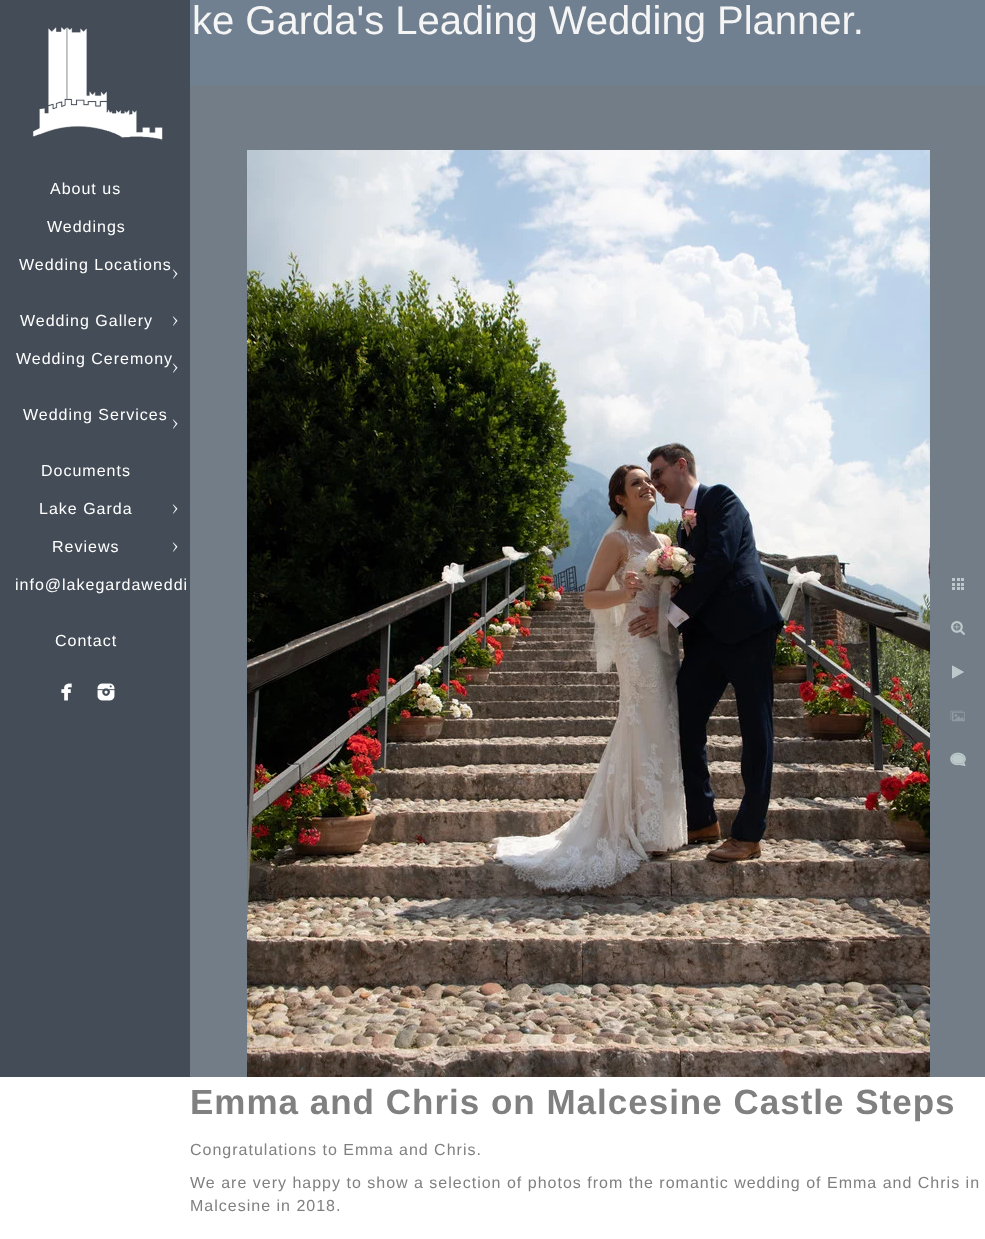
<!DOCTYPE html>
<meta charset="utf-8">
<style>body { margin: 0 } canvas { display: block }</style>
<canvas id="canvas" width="985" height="1239"></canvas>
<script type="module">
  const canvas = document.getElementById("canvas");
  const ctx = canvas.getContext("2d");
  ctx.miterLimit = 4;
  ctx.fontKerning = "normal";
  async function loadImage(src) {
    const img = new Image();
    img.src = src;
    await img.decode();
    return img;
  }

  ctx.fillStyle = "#727d87";
  ctx.fillRect(0, 0, 985, 1239);
  ctx.fillStyle = "#708090";
  ctx.fillRect(190, 0, 795, 85);
  ctx.font = "40px Liberation Sans";
  ctx.fillStyle = "#f5f5f5";
  ctx.fillText("ke Garda's Leading Wedding Planner.", 192, 34);
  ctx.fillStyle = "#444c57";
  ctx.fillRect(0, 0, 190, 1077);
  ctx.drawImage(await loadImage("img1.png"), 32, 27, 131, 114);
  ctx.letterSpacing = "1px";
  ctx.font = "16px Liberation Sans";
  ctx.fillStyle = "#ffffff";
  ctx.fillText("About us", 50, 194);
  ctx.fillText("Weddings", 47, 232);
  ctx.fillText("Wedding Locations", 19, 270);
  ctx.drawImage(await loadImage("img2.png"), 172, 269, 6, 10);
  ctx.fillText("Wedding Gallery", 20, 326);
  ctx.drawImage(await loadImage("img2.png"), 172, 316, 6, 10);
  ctx.fillText("Wedding Ceremony", 16, 364);
  ctx.drawImage(await loadImage("img2.png"), 172, 363, 6, 10);
  ctx.fillText("Wedding Services", 23, 420);
  ctx.drawImage(await loadImage("img2.png"), 172, 419, 6, 10);
  ctx.fillText("Documents", 41, 476);
  ctx.fillText("Lake Garda", 39, 514);
  ctx.drawImage(await loadImage("img2.png"), 172, 504, 6, 10);
  ctx.fillText("Reviews", 52, 552);
  ctx.drawImage(await loadImage("img2.png"), 172, 542, 6, 10);
  ctx.fillText("info@lakegardaweddi", 15, 590);
  ctx.fillText("Contact", 55, 646);
  ctx.drawImage(await loadImage("img3.png"), 61, 683, 11, 18);
  ctx.drawImage(await loadImage("img4.png"), 97, 683, 18, 18);
  ctx.drawImage(await loadImage("img5.png"), 247, 150, 683, 927);
  ctx.drawImage(await loadImage("img6.png"), 952, 578, 12, 12);
  ctx.drawImage(await loadImage("img7.png"), 951, 621, 14, 14);
  ctx.drawImage(await loadImage("img8.png"), 952, 665, 12, 14);
  ctx.drawImage(await loadImage("img9.png"), 950, 710, 15, 12);
  ctx.drawImage(await loadImage("img10.png"), 950, 752, 16, 15);
  ctx.fillRect(0, 1077, 985, 162);
  ctx.font = "bold 35px Liberation Sans";
  ctx.fillStyle = "#808080";
  ctx.fillText("Emma and Chris on Malcesine Castle Steps", 190, 1114);
  ctx.font = "16px Liberation Sans";
  ctx.fillText("Congratulations to Emma and Chris.", 190, 1155);
  ctx.fillText("We are very happy to show a selection of photos from the romantic wedding of Emma and Chris in", 190, 1188);
  ctx.fillText("Malcesine in 2018.", 190, 1211);
</script>
